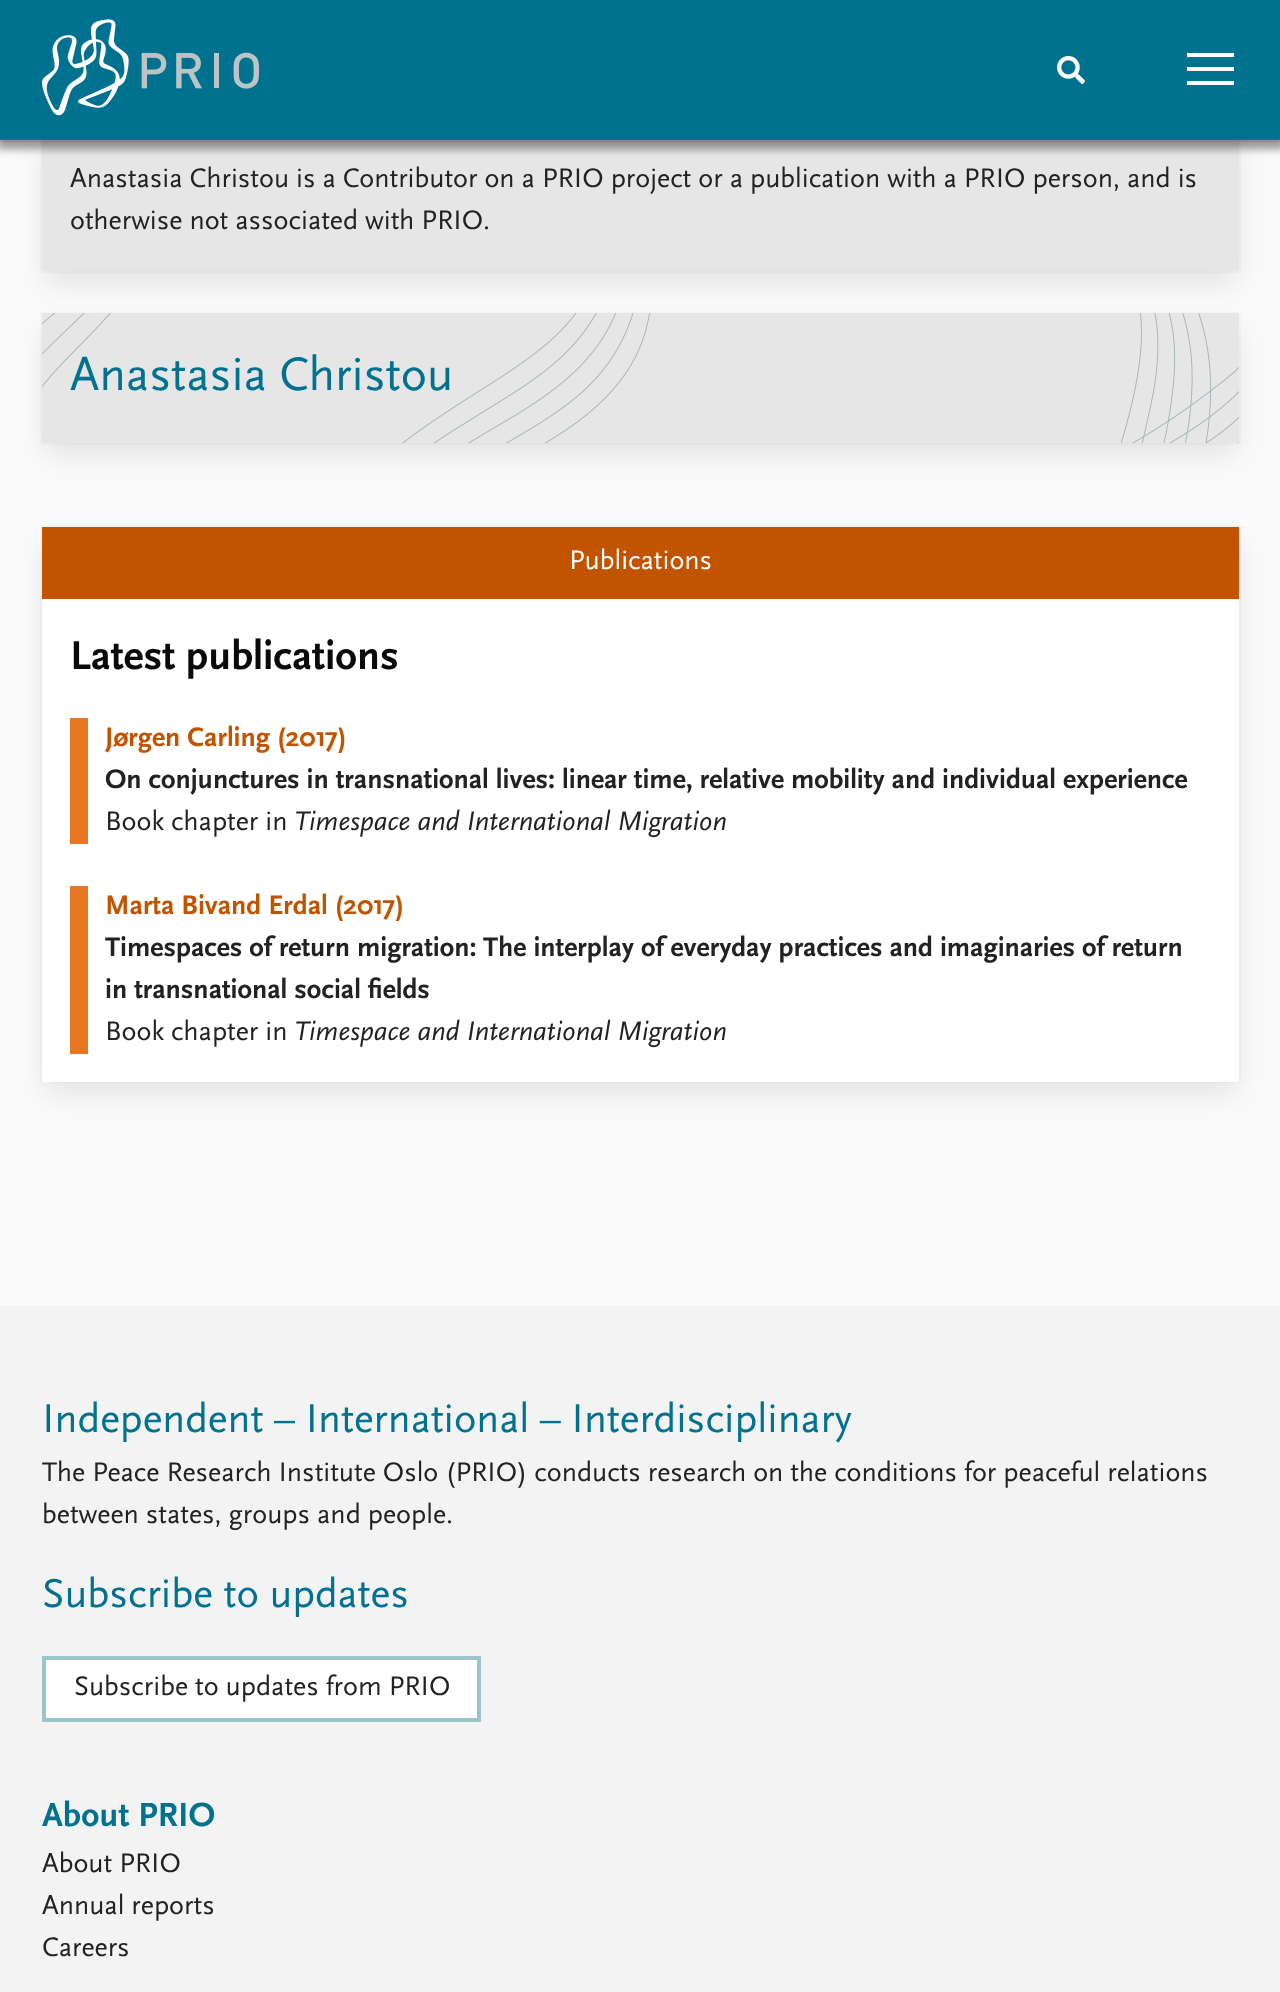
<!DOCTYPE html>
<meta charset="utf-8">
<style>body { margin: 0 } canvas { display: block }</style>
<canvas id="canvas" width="1280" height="1992"></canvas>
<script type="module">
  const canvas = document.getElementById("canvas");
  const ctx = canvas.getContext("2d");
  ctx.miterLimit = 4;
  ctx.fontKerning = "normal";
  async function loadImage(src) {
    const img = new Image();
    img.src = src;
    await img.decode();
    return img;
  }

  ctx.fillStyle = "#fafafa";
  ctx.fillRect(0, 0, 1280, 1992);
  ctx.strokeStyle = "#f5f5f5";
  ctx.lineWidth = 2;
  ctx.strokeRect(41, 131, 1199, 141);
  ctx.fillStyle = "rgba(10, 10, 10, 0.1)";
  ctx.filter = "blur(14px)";
  ctx.beginPath();
  ctx.rect(46, 149, 1190, 133);
  ctx.fill();
  ctx.filter = "none";
  ctx.fillStyle = "#e6e6e6";
  ctx.fillRect(42, 140, 1197, 131);
  ctx.strokeStyle = "rgba(10, 10, 10, 0.08)";
  ctx.strokeRect(-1, -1, 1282, 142);
  ctx.fillStyle = "rgba(50, 50, 50, 0.5)";
  ctx.filter = "blur(4px)";
  ctx.beginPath();
  ctx.rect(-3, 4, 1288, 145);
  ctx.fill();
  ctx.filter = "none";
  ctx.fillStyle = "#00718f";
  ctx.fillRect(0, 0, 1280, 140);
  ctx.drawImage(await loadImage("img1.png"), 42, 19, 217, 97);
  ctx.drawImage(await loadImage("img2.png"), 1057, 56, 28, 28);
  ctx.fillStyle = "#ffffff";
  ctx.fillRect(1187, 53, 47, 4);
  ctx.fillRect(1187, 67, 47, 4);
  ctx.fillRect(1187, 81, 47, 4);
  ctx.font = "28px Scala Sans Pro";
  ctx.fillStyle = "#222222";
  ctx.fillText("Anastasia Christou is a Contributor on a PRIO project or a publication with a PRIO person, and is", 70, 187);
  ctx.fillText("otherwise not associated with PRIO.", 70, 229);
  ctx.strokeStyle = "#f5f5f5";
  ctx.strokeRect(41, 313, 1199, 131);
  ctx.fillStyle = "rgba(10, 10, 10, 0.1)";
  ctx.filter = "blur(14px)";
  ctx.beginPath();
  ctx.rect(46, 331, 1190, 122);
  ctx.fill();
  ctx.filter = "none";
  ctx.fillStyle = "#e6e6e6";
  ctx.fillRect(42, 313, 1197, 130);
  ctx.drawImage(await loadImage("img3.png"), 42, 313, 1197, 130);
  ctx.font = "49px Scala Sans Pro";
  ctx.fillStyle = "#00718f";
  ctx.fillText("Anastasia Christou", 70, 390);
  ctx.strokeRect(41, 526, 1199, 556);
  ctx.fillStyle = "rgba(10, 10, 10, 0.1)";
  ctx.filter = "blur(14px)";
  ctx.beginPath();
  ctx.rect(46, 544, 1190, 548);
  ctx.fill();
  ctx.filter = "none";
  ctx.fillStyle = "#ffffff";
  ctx.fillRect(42, 599, 1197, 483);
  ctx.fillStyle = "#c25400";
  ctx.fillRect(42, 527, 1197, 72);
  ctx.font = "28px Scala Sans Pro";
  ctx.fillStyle = "#ffffff";
  ctx.fillText("Publications", 569, 569);
  ctx.font = "bold 42px Scala Sans Pro";
  ctx.fillStyle = "#0a0a0a";
  ctx.fillText("Latest publications", 70, 669);
  ctx.fillStyle = "#e87722";
  ctx.fillRect(70, 718, 18, 126);
  ctx.font = "bold 28px Scala Sans Pro";
  ctx.fillStyle = "#c25400";
  ctx.fillText("Jørgen Carling (2017)", 105, 746);
  ctx.fillStyle = "#222222";
  ctx.fillText("On conjunctures in transnational lives: linear time, relative mobility and individual experience", 105, 788);
  ctx.font = "28px Scala Sans Pro";
  ctx.fillText("Book chapter in", 105, 830);
  ctx.font = "italic 28px Scala Sans Pro";
  ctx.fillText("Timespace and International Migration", 294, 830);
  ctx.fillStyle = "#e87722";
  ctx.fillRect(70, 886, 18, 168);
  ctx.font = "bold 28px Scala Sans Pro";
  ctx.fillStyle = "#c25400";
  ctx.fillText("Marta Bivand Erdal (2017)", 105, 914);
  ctx.fillStyle = "#222222";
  ctx.fillText("Timespaces of return migration: The interplay of everyday practices and imaginaries of return", 105, 956);
  ctx.fillText("in transnational social fields", 105, 998);
  ctx.font = "28px Scala Sans Pro";
  ctx.fillText("Book chapter in", 105, 1040);
  ctx.font = "italic 28px Scala Sans Pro";
  ctx.fillText("Timespace and International Migration", 294, 1040);
  ctx.fillStyle = "#f3f3f3";
  ctx.fillRect(0, 1306, 1280, 686);
  ctx.font = "42px Scala Sans Pro";
  ctx.fillStyle = "#00718f";
  ctx.fillText("Independent – International – Interdisciplinary", 42, 1432);
  ctx.font = "28px Scala Sans Pro";
  ctx.fillStyle = "#222222";
  ctx.fillText("The Peace Research Institute Oslo (PRIO) conducts research on the conditions for peaceful relations", 42, 1481);
  ctx.fillText("between states, groups and people.", 42, 1523);
  ctx.font = "42px Scala Sans Pro";
  ctx.fillStyle = "#00718f";
  ctx.fillText("Subscribe to updates", 42, 1607);
  ctx.fillStyle = "#ffffff";
  ctx.beginPath();
  ctx.rect(44, 1658, 435, 62);
  ctx.fill();
  ctx.strokeStyle = "#9cc5ca";
  ctx.lineWidth = 4;
  ctx.stroke();
  ctx.font = "28px Scala Sans Pro";
  ctx.fillStyle = "#222222";
  ctx.fillText("Subscribe to updates from PRIO", 74, 1695);
  ctx.font = "bold 35px Scala Sans Pro";
  ctx.fillStyle = "#00718f";
  ctx.fillText("About PRIO", 42, 1826);
  ctx.font = "28px Scala Sans Pro";
  ctx.fillStyle = "#222222";
  ctx.fillText("About PRIO", 42, 1872);
  ctx.fillText("Annual reports", 42, 1914);
  ctx.fillText("Careers", 42, 1956);
</script>
